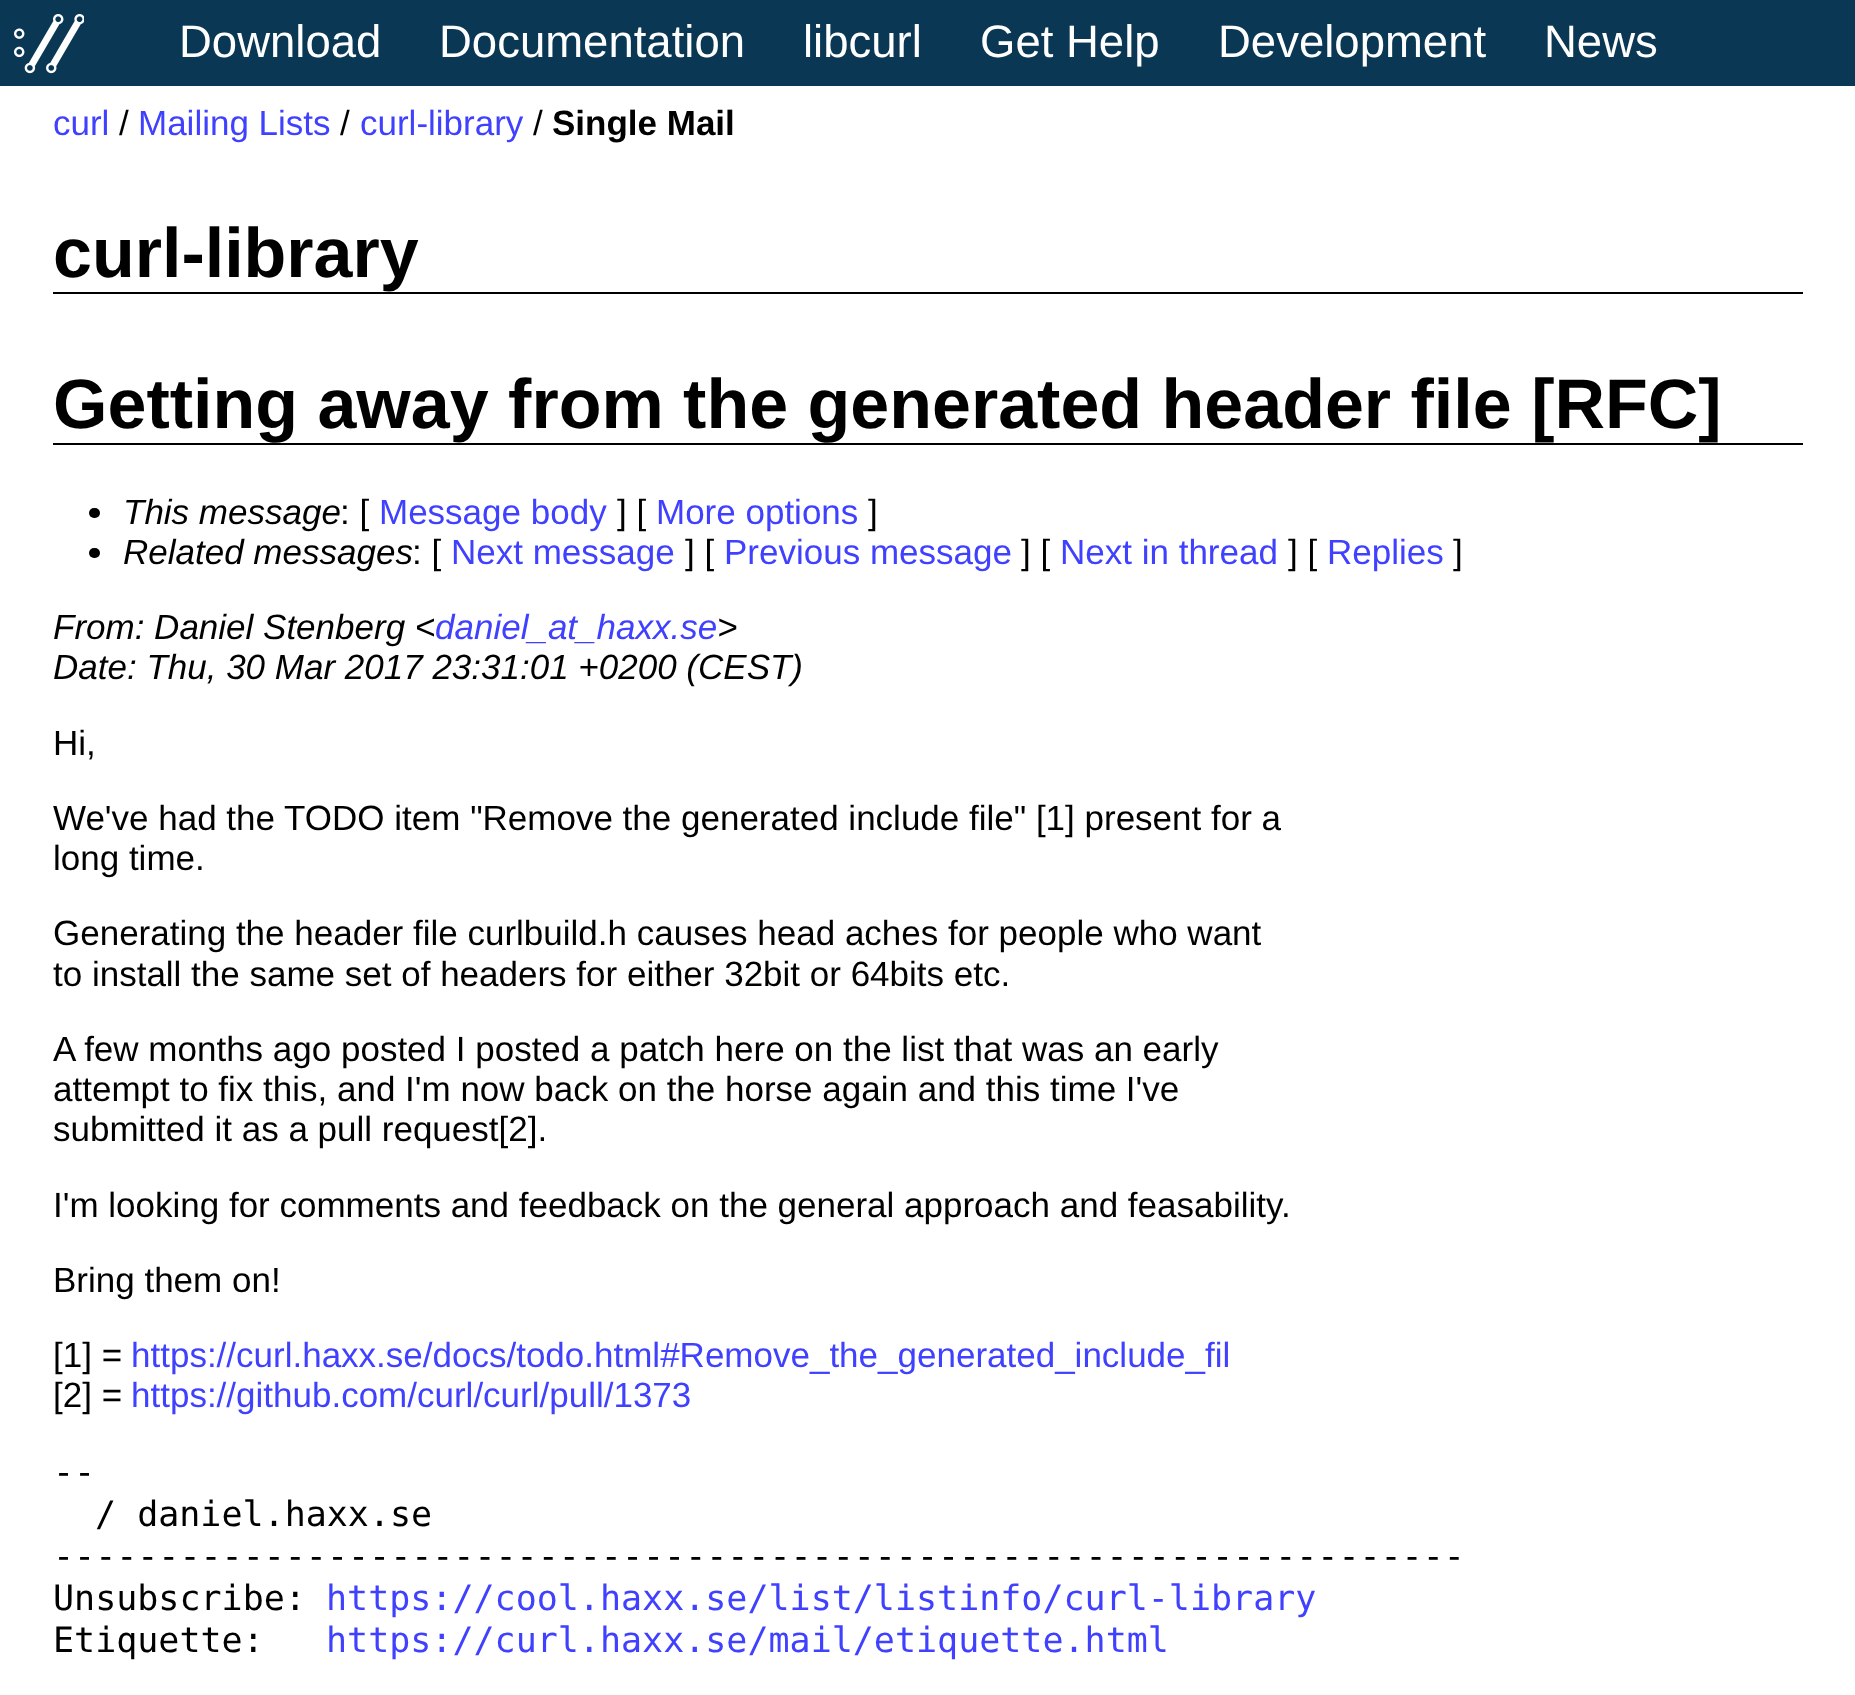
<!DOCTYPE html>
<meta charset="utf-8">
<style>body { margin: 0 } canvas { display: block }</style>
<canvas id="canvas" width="1855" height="1695"></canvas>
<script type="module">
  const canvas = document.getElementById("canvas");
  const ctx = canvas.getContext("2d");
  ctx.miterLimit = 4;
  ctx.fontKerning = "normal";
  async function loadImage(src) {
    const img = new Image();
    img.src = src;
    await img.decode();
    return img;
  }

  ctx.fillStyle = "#ffffff";
  ctx.fillRect(0, 0, 1855, 1695);
  ctx.fillStyle = "#093754";
  ctx.fillRect(0, 0, 1855, 86);
  ctx.drawImage(await loadImage("img1.png"), 14, 14, 70, 60);
  ctx.font = "45.5px Liberation Sans";
  ctx.fillStyle = "#ffffff";
  ctx.fillText("Download", 179, 57);
  ctx.fillText("Documentation", 439, 57);
  ctx.fillText("libcurl", 803, 57);
  ctx.fillText("Get Help", 980, 57);
  ctx.fillText("Development", 1218, 57);
  ctx.fillText("News", 1544, 57);
  ctx.font = "35px Liberation Sans";
  ctx.fillStyle = "#4040ff";
  ctx.fillText("curl", 53, 135);
  ctx.fillStyle = "#000000";
  ctx.fillText("/", 119, 135);
  ctx.fillStyle = "#4040ff";
  ctx.fillText("Mailing Lists", 138, 135);
  ctx.fillStyle = "#000000";
  ctx.fillText("/", 340, 135);
  ctx.fillStyle = "#4040ff";
  ctx.fillText("curl-library", 360, 135);
  ctx.fillStyle = "#000000";
  ctx.fillText("/", 533, 135);
  ctx.font = "bold 35px Liberation Sans";
  ctx.fillText("Single Mail", 552, 135);
  ctx.fillRect(53, 292, 1750, 2);
  ctx.font = "bold 70px Liberation Sans";
  ctx.fillText("curl-library", 53, 277);
  ctx.fillRect(53, 443, 1750, 2);
  ctx.fillText("Getting away from the generated header file [RFC]", 53, 428);
  ctx.beginPath();
  ctx.roundRect(89, 508, 11, 10, 5);
  ctx.fill();
  ctx.font = "italic 35px Liberation Sans";
  ctx.fillText("This message", 123, 524);
  ctx.font = "35px Liberation Sans";
  ctx.fillText(": [", 340, 524);
  ctx.fillStyle = "#4040ff";
  ctx.fillText("Message body", 379, 524);
  ctx.fillStyle = "#000000";
  ctx.fillText("] [", 617, 524);
  ctx.fillStyle = "#4040ff";
  ctx.fillText("More options", 656, 524);
  ctx.fillStyle = "#000000";
  ctx.fillText("]", 868, 524);
  ctx.beginPath();
  ctx.roundRect(89, 548, 11, 10, 5);
  ctx.fill();
  ctx.font = "italic 35px Liberation Sans";
  ctx.fillText("Related messages", 123, 564);
  ctx.font = "35px Liberation Sans";
  ctx.fillText(": [", 412, 564);
  ctx.fillStyle = "#4040ff";
  ctx.fillText("Next message", 451, 564);
  ctx.fillStyle = "#000000";
  ctx.fillText("] [", 685, 564);
  ctx.fillStyle = "#4040ff";
  ctx.fillText("Previous message", 724, 564);
  ctx.fillStyle = "#000000";
  ctx.fillText("] [", 1021, 564);
  ctx.fillStyle = "#4040ff";
  ctx.fillText("Next in thread", 1060, 564);
  ctx.fillStyle = "#000000";
  ctx.fillText("] [", 1288, 564);
  ctx.fillStyle = "#4040ff";
  ctx.fillText("Replies", 1327, 564);
  ctx.fillStyle = "#000000";
  ctx.fillText("]", 1453, 564);
  ctx.font = "italic 35px Liberation Sans";
  ctx.fillText("From: Daniel Stenberg <", 53, 639);
  ctx.fillStyle = "#4040ff";
  ctx.fillText("daniel_at_haxx.se", 435, 639);
  ctx.fillStyle = "#000000";
  ctx.fillText(">", 717, 639);
  ctx.fillText("Date: Thu, 30 Mar 2017 23:31:01 +0200 (CEST)", 53, 679);
  ctx.font = "35px Liberation Sans";
  ctx.fillText("Hi,", 53, 755);
  ctx.fillText("We've had the TODO item \"Remove the generated include file\" [1] present for a", 53, 830);
  ctx.fillText("long time.", 53, 870);
  ctx.fillText("Generating the header file curlbuild.h causes head aches for people who want", 53, 945);
  ctx.fillText("to install the same set of headers for either 32bit or 64bits etc.", 53, 986);
  ctx.fillText("A few months ago posted I posted a patch here on the list that was an early", 53, 1061);
  ctx.fillText("attempt to fix this, and I'm now back on the horse again and this time I've", 53, 1101);
  ctx.fillText("submitted it as a pull request[2].", 53, 1141);
  ctx.fillText("I'm looking for comments and feedback on the general approach and feasability.", 53, 1217);
  ctx.fillText("Bring them on!", 53, 1292);
  ctx.fillText("[1] =", 53, 1367);
  ctx.fillStyle = "#4040ff";
  ctx.fillText("https://curl.haxx.se/docs/todo.html#Remove_the_generated_include_fil", 131, 1367);
  ctx.fillStyle = "#000000";
  ctx.fillText("[2] =", 53, 1407);
  ctx.fillStyle = "#4040ff";
  ctx.fillText("https://github.com/curl/curl/pull/1373", 131, 1407);
  ctx.font = "35px DejaVu Sans Mono";
  ctx.fillStyle = "#000000";
  ctx.fillText("--", 53, 1484);
  ctx.fillText("/ daniel.haxx.se", 95, 1526);
  ctx.fillText("-------------------------------------------------------------------", 53, 1568);
  ctx.fillText("Unsubscribe:", 53, 1610);
  ctx.fillStyle = "#4040ff";
  ctx.fillText("https://cool.haxx.se/list/listinfo/curl-library", 326, 1610);
  ctx.fillStyle = "#000000";
  ctx.fillText("Etiquette:", 53, 1652);
  ctx.fillStyle = "#4040ff";
  ctx.fillText("https://curl.haxx.se/mail/etiquette.html", 326, 1652);
</script>
